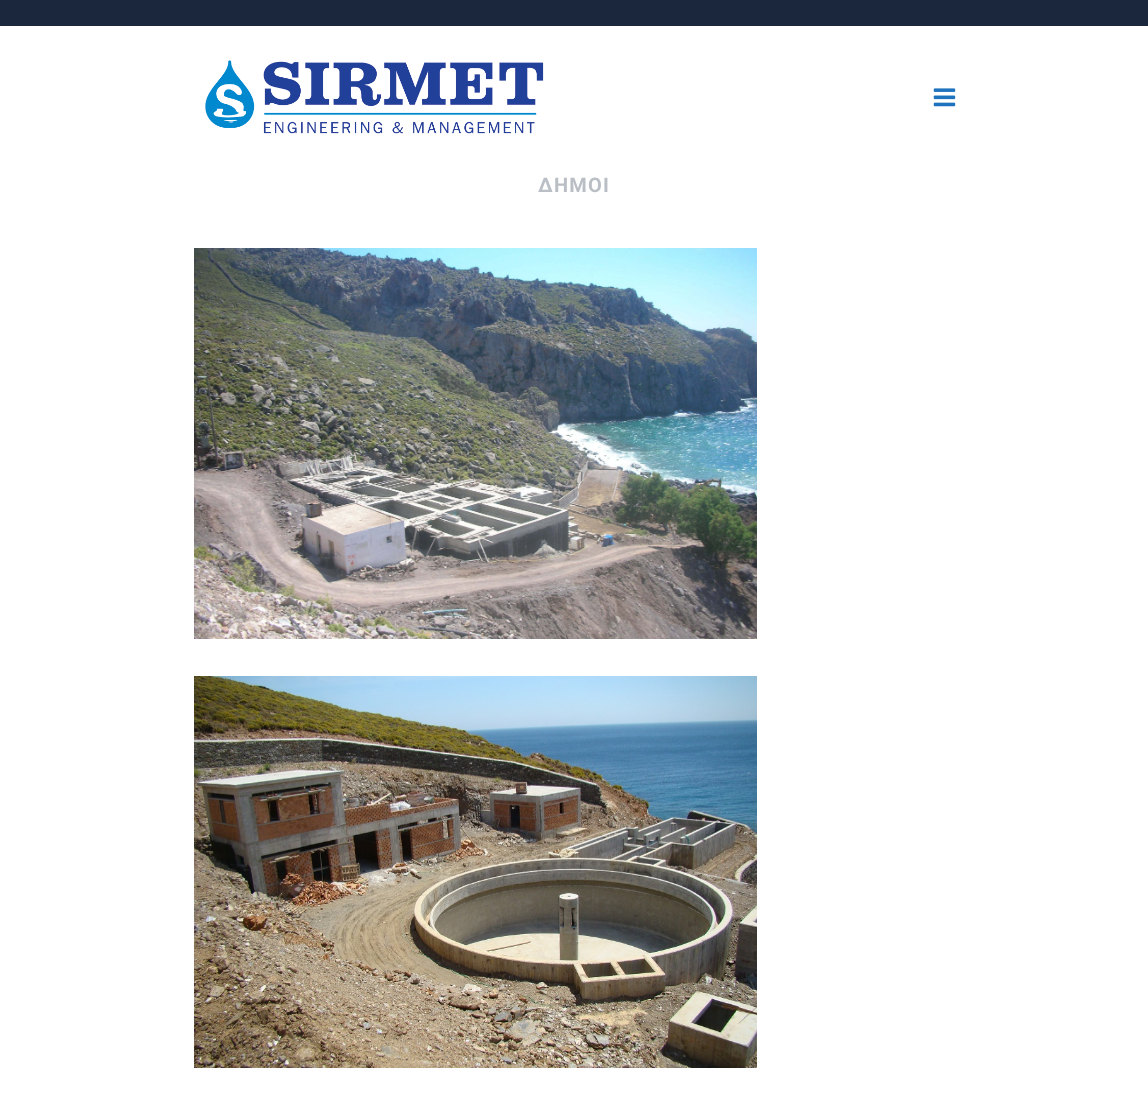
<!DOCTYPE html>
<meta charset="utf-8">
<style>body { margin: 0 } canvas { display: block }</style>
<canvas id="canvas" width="1148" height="1096"></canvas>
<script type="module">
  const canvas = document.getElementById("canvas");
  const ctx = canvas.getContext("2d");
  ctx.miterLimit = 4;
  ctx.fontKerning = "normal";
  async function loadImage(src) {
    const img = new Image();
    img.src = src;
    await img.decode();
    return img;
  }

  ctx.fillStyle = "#ffffff";
  ctx.fillRect(0, 0, 1148, 1096);
  ctx.fillStyle = "#1b273d";
  ctx.fillRect(0, 0, 1148, 26);
  ctx.drawImage(await loadImage("img1.png"), 205, 60, 339, 74);
  ctx.drawImage(await loadImage("img2.png"), 933, 88, 23, 19);
  ctx.letterSpacing = "1.25px";
  ctx.font = "bold 20px Roboto";
  ctx.fillStyle = "#babfc5";
  ctx.fillText("ΔΗΜΟΙ", 538, 192);
  ctx.drawImage(await loadImage("img3.png"), 194, 248, 563, 391);
  ctx.drawImage(await loadImage("img4.png"), 194, 676, 563, 392);
</script>
